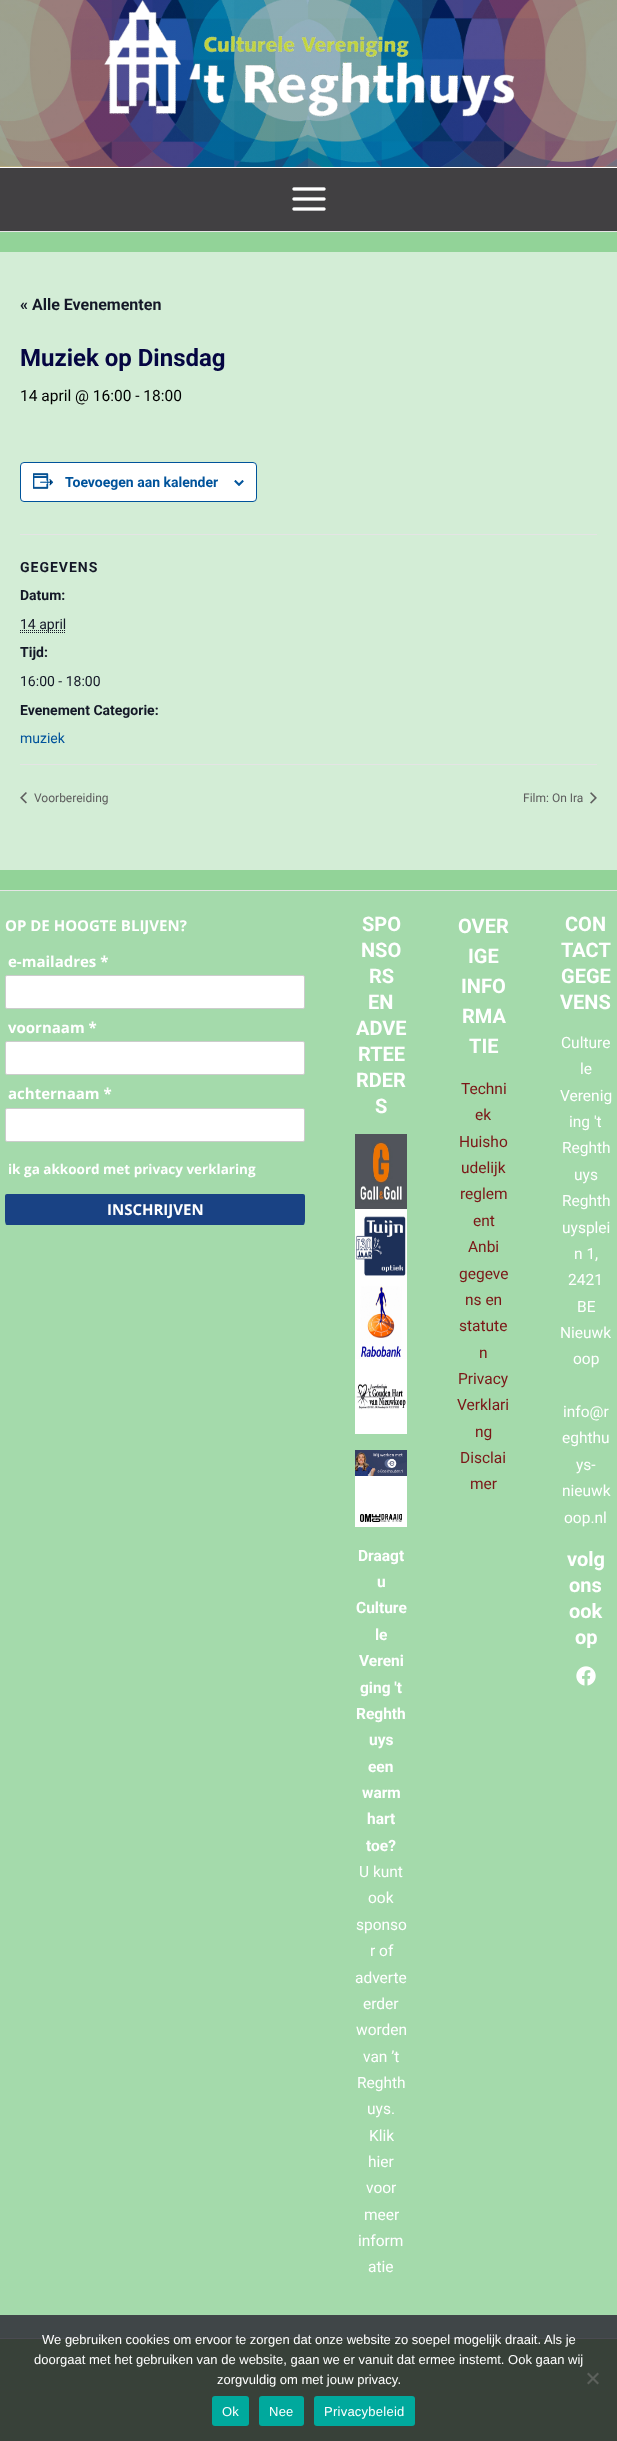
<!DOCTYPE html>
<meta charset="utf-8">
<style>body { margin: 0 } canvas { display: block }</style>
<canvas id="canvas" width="617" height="2441"></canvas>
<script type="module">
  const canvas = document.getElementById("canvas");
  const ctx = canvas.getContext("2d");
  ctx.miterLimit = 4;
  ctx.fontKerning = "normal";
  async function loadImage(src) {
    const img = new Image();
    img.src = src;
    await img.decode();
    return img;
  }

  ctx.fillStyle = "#92d398";
  ctx.fillRect(0, 0, 617, 2441);
  ctx.drawImage(await loadImage("img1.png"), 0, 0, 617, 167);
  ctx.fillStyle = "#ffffff";
  ctx.fillRect(0, 167, 617, 1);
  ctx.drawImage(await loadImage("img2.png"), 104, 0, 411, 117);
  ctx.fillStyle = "#414042";
  ctx.fillRect(0, 168, 617, 63);
  ctx.fillStyle = "#e5e5e5";
  ctx.fillRect(0, 231, 617, 1);
  ctx.drawImage(await loadImage("img3.png"), 292, 187, 34, 24);
  ctx.fillStyle = "#d3edd6";
  ctx.fillRect(0, 252, 617, 618);
  ctx.font = "bold 16px Roboto";
  ctx.fillStyle = "#141827";
  ctx.fillText("« Alle Evenementen", 20, 310);
  ctx.font = "bold 24px Roboto";
  ctx.fillStyle = "#050642";
  ctx.fillText("Muziek op Dinsdag", 20, 366);
  ctx.font = "15.5px Roboto";
  ctx.fillStyle = "#000000";
  ctx.fillText("14 april @ 16:00 - 18:00", 20, 401);
  ctx.fillStyle = "#ffffff";
  ctx.beginPath();
  ctx.roundRect(20.5, 462.5, 236, 39, 3.5);
  ctx.fill();
  ctx.strokeStyle = "#00539b";
  ctx.stroke();
  ctx.drawImage(await loadImage("img4.png"), 33, 473, 21, 16);
  ctx.font = "bold 14px Roboto";
  ctx.fillStyle = "#00539b";
  ctx.fillText("Toevoegen aan kalender", 65, 487);
  ctx.drawImage(await loadImage("img5.png"), 234, 480, 10, 6);
  ctx.fillStyle = "#e4e4e4";
  ctx.fillRect(20, 534, 577, 1);
  ctx.letterSpacing = "1px";
  ctx.fillStyle = "#141827";
  ctx.fillText("GEGEVENS", 20, 572);
  ctx.letterSpacing = "0px";
  ctx.fillText("Datum:", 20, 600);
  ctx.beginPath();
  ctx.moveTo(20, 632.5);
  ctx.lineTo(66, 632.5);
  ctx.moveTo(20, 630.5);
  ctx.lineTo(66, 630.5);
  ctx.strokeStyle = "#141827";
  ctx.setLineDash([1, 1]);
  ctx.stroke();
  ctx.font = "14px Roboto";
  ctx.fillText("14 april", 20, 629);
  ctx.font = "bold 14px Roboto";
  ctx.fillText("Tijd:", 20, 657);
  ctx.font = "14px Roboto";
  ctx.fillText("16:00 - 18:00", 20, 686);
  ctx.font = "bold 14px Roboto";
  ctx.fillText("Evenement Categorie:", 20, 715);
  ctx.font = "14px Roboto";
  ctx.fillStyle = "#00539b";
  ctx.fillText("muziek", 20, 743);
  ctx.fillStyle = "#e4e4e4";
  ctx.fillRect(20, 764, 577, 1);
  ctx.drawImage(await loadImage("img6.png"), 20, 792, 7, 12);
  ctx.font = "12px Roboto";
  ctx.fillStyle = "#5d5d5d";
  ctx.fillText("Voorbereiding", 34, 802);
  ctx.fillText("Film: On Ira", 523, 802);
  ctx.drawImage(await loadImage("img7.png"), 590, 792, 7, 12);
  ctx.fillStyle = "#a4daab";
  ctx.fillRect(0, 891, 617, 1424);
  ctx.fillStyle = "#404648";
  ctx.fillRect(0, 2315, 617, 23);
  ctx.fillStyle = "#e5e5e5";
  ctx.fillRect(0, 890, 617, 1);
  ctx.font = "bold 15px Open Sans";
  ctx.fillStyle = "#ffffff";
  ctx.fillText("OP DE HOOGTE BLIJVEN?", 5, 931);
  ctx.fillText("e-mailadres *", 8, 967);
  ctx.beginPath();
  ctx.roundRect(5.5, 975.5, 299, 33, 1.5);
  ctx.fill();
  ctx.strokeStyle = "#cccccc";
  ctx.setLineDash([]);
  ctx.stroke();
  ctx.fillText("voornaam *", 8, 1033);
  ctx.beginPath();
  ctx.roundRect(5.5, 1041.5, 299, 33, 1.5);
  ctx.fill();
  ctx.stroke();
  ctx.fillText("achternaam *", 8, 1099);
  ctx.beginPath();
  ctx.roundRect(5.5, 1108.5, 299, 33, 1.5);
  ctx.fill();
  ctx.stroke();
  ctx.font = "bold 13.5px Open Sans";
  ctx.fillText("ik ga akkoord met privacy verklaring", 8, 1174);
  ctx.save();
  ctx.beginPath();
  ctx.roundRect(5, 911, 300, 320, 10);
  ctx.clip();
  ctx.fillStyle = "#194284";
  ctx.beginPath();
  ctx.roundRect(5, 1194, 300, 31, 2);
  ctx.fill();
  ctx.restore();
  ctx.font = "bold 15px Open Sans";
  ctx.fillText("INSCHRIJVEN", 107, 1215);
  ctx.font = "bold 20px Roboto";
  ctx.fillText("SPO", 362, 931);
  ctx.fillText("NSO", 361, 957);
  ctx.fillText("RS", 369, 983);
  ctx.fillText("EN", 368, 1009);
  ctx.fillText("ADVE", 356, 1035);
  ctx.fillText("RTEE", 358, 1061);
  ctx.fillText("RDER", 356, 1087);
  ctx.fillText("S", 375, 1113);
  ctx.drawImage(await loadImage("img8.png"), 355, 1134, 52, 75);
  ctx.drawImage(await loadImage("img9.png"), 355, 1209, 52, 75);
  ctx.drawImage(await loadImage("img10.png"), 355, 1284, 52, 75);
  ctx.drawImage(await loadImage("img11.png"), 355, 1359, 52, 75);
  ctx.drawImage(await loadImage("img12.png"), 355, 1450, 52, 26);
  ctx.fillRect(355, 1476, 52, 51);
  ctx.drawImage(await loadImage("img13.png"), 360, 1514, 42, 8);
  ctx.font = "bold 15.5px Roboto";
  ctx.fillText("Draagt", 358, 1561);
  ctx.fillText("u", 377, 1587);
  ctx.fillText("Culture", 356, 1613);
  ctx.fillText("le", 375, 1640);
  ctx.fillText("Vereni", 359, 1666);
  ctx.fillText("ging 't", 360, 1693);
  ctx.fillText("Reghth", 356, 1719);
  ctx.fillText("uys", 369, 1745);
  ctx.fillText("een", 368, 1772);
  ctx.fillText("warm", 362, 1798);
  ctx.fillText("hart", 367, 1824);
  ctx.fillText("toe?", 366, 1851);
  ctx.font = "15.5px Roboto";
  ctx.fillText("U kunt", 359, 1877);
  ctx.fillText("ook", 368, 1903);
  ctx.fillText("sponso", 356, 1930);
  ctx.fillText("r of", 370, 1956);
  ctx.fillText("adverte", 355, 1983);
  ctx.fillText("erder", 363, 2009);
  ctx.fillText("worden", 356, 2035);
  ctx.fillText("van ’t", 363, 2062);
  ctx.fillText("Reghth", 357, 2088);
  ctx.fillText("uys.", 367, 2114);
  ctx.fillText("Klik", 369, 2141);
  ctx.fillText("hier", 368, 2167);
  ctx.fillText("voor", 366, 2193);
  ctx.fillText("meer", 364, 2220);
  ctx.fillText("inform", 358, 2246);
  ctx.fillText("atie", 368, 2272);
  ctx.font = "bold 20px Roboto";
  ctx.fillText("OVER", 458, 933);
  ctx.fillText("IGE", 468, 963);
  ctx.fillText("INFO", 461, 993);
  ctx.fillText("RMA", 462, 1023);
  ctx.fillText("TIE", 469, 1053);
  ctx.font = "15.5px Roboto";
  ctx.fillStyle = "#7b1717";
  ctx.fillText("Techni", 461, 1094);
  ctx.fillText("ek", 475, 1120);
  ctx.fillText("Huisho", 459, 1147);
  ctx.fillText("udelijk", 461, 1173);
  ctx.fillText("reglem", 460, 1199);
  ctx.fillText("ent", 473, 1226);
  ctx.fillText("Anbi", 468, 1252);
  ctx.fillText("gegeve", 459, 1279);
  ctx.fillText("ns en", 465, 1305);
  ctx.fillText("statute", 459, 1331);
  ctx.fillText("n", 479, 1358);
  ctx.fillText("Privacy", 458, 1384);
  ctx.fillText("Verklari", 457, 1410);
  ctx.fillText("ng", 475, 1437);
  ctx.fillText("Disclai", 460, 1463);
  ctx.fillText("mer", 470, 1489);
  ctx.font = "bold 20px Roboto";
  ctx.fillStyle = "#ffffff";
  ctx.fillText("CON", 565, 931);
  ctx.fillText("TACT", 561, 957);
  ctx.fillText("GEGE", 561, 983);
  ctx.fillText("VENS", 560, 1009);
  ctx.font = "15.5px Roboto";
  ctx.fillText("Culture", 561, 1048);
  ctx.fillText("le", 580, 1074);
  ctx.fillText("Verenig", 560, 1101);
  ctx.fillText("ing 't", 569, 1127);
  ctx.fillText("Reghth", 562, 1153);
  ctx.fillText("uys", 574, 1180);
  ctx.fillText("Reghth", 562, 1206);
  ctx.fillText("uysplei", 562, 1233);
  ctx.fillText("n 1,", 574, 1259);
  ctx.fillText("2421", 568, 1285);
  ctx.fillText("BE", 577, 1312);
  ctx.fillText("Nieuwk", 560, 1338);
  ctx.fillText("oop", 573, 1364);
  ctx.fillText("info@r", 563, 1417);
  ctx.fillText("eghthu", 562, 1443);
  ctx.fillText("ys-", 576, 1470);
  ctx.fillText("nieuwk", 562, 1496);
  ctx.fillText("oop.nl", 564, 1523);
  ctx.font = "bold 20px Roboto";
  ctx.fillText("volg", 567, 1566);
  ctx.fillText("ons", 569, 1592);
  ctx.fillText("ook", 569, 1618);
  ctx.fillText("op", 575, 1644);
  ctx.drawImage(await loadImage("img14.png"), 576, 1666, 20, 20);
  ctx.fillStyle = "#384139";
  ctx.fillRect(0, 2339, 617, 102);
  ctx.fillStyle = "#4b4b52";
  ctx.fillRect(0, 2338, 617, 1);
  ctx.font = "13px Liberation Sans";
  ctx.fillStyle = "#ffffff";
  ctx.fillText("We gebruiken cookies om ervoor te zorgen dat onze website zo soepel mogelijk draait. Als je", 42, 2344);
  ctx.fillText("doorgaat met het gebruiken van de website, gaan we er vanuit dat ermee instemt. Ook gaan wij", 34, 2364);
  ctx.fillText("zorgvuldig om met jouw privacy.", 217, 2384);
  ctx.fillStyle = "#5c615c";
  ctx.beginPath();
  ctx.moveTo(597.5, 2372.5);
  ctx.lineTo(599, 2374);
  ctx.lineTo(588.5, 2384.5);
  ctx.lineTo(587, 2383);
  ctx.closePath();
  ctx.fill();
  ctx.beginPath();
  ctx.moveTo(587, 2374);
  ctx.lineTo(588.5, 2372.5);
  ctx.lineTo(599, 2383);
  ctx.lineTo(597.5, 2384.5);
  ctx.closePath();
  ctx.fill();
  ctx.fillStyle = "#00a99d";
  ctx.beginPath();
  ctx.roundRect(212, 2396, 37, 30, 3);
  ctx.fill();
  ctx.letterSpacing = "0.25px";
  ctx.fillStyle = "#ffffff";
  ctx.fillText("Ok", 222, 2416);
  ctx.fillStyle = "#00a99d";
  ctx.beginPath();
  ctx.roundRect(259, 2396, 45, 30, 3);
  ctx.fill();
  ctx.fillStyle = "#ffffff";
  ctx.fillText("Nee", 269, 2416);
  ctx.fillStyle = "#00a99d";
  ctx.beginPath();
  ctx.roundRect(314, 2396, 101, 30, 3);
  ctx.fill();
  ctx.fillStyle = "#ffffff";
  ctx.fillText("Privacybeleid", 324, 2416);
</script>
